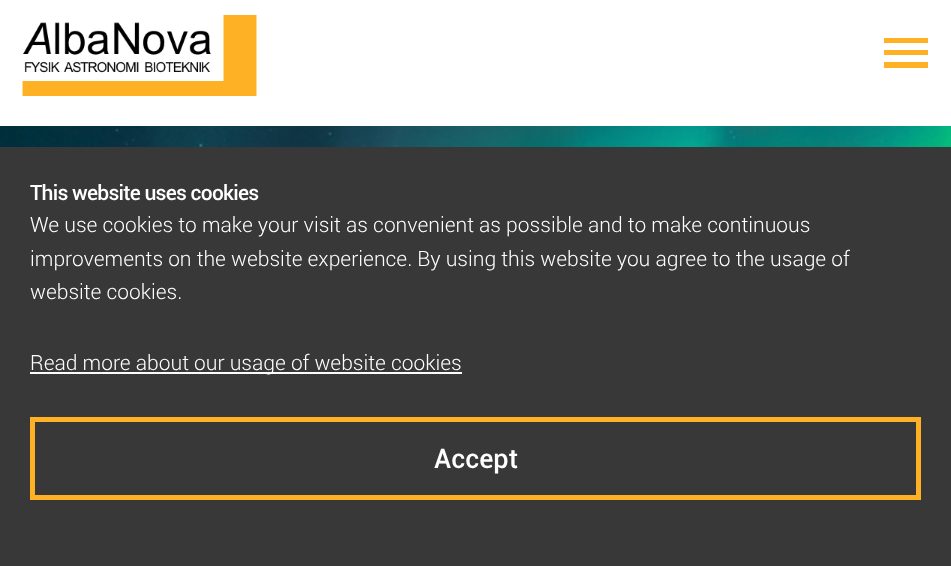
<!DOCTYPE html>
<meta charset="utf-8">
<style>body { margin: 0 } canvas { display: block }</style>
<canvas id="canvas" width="951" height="566"></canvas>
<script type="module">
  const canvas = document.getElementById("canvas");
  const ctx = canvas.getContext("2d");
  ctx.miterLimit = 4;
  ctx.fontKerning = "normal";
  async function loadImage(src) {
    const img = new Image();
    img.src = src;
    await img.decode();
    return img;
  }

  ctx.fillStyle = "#ffffff";
  ctx.fillRect(0, 0, 951, 566);
  ctx.drawImage(await loadImage("img1.png"), 22, 15, 235, 81);
  ctx.fillStyle = "#ffb125";
  ctx.beginPath();
  ctx.moveTo(884, 68);
  ctx.lineTo(884, 62);
  ctx.lineTo(928, 62);
  ctx.lineTo(928, 68);
  ctx.closePath();
  ctx.moveTo(884, 55);
  ctx.lineTo(884, 50);
  ctx.lineTo(928, 50);
  ctx.lineTo(928, 55);
  ctx.closePath();
  ctx.moveTo(884, 38);
  ctx.lineTo(928, 38);
  ctx.lineTo(928, 43);
  ctx.lineTo(884, 43);
  ctx.closePath();
  ctx.fill();
  ctx.drawImage(await loadImage("img2.png"), 0, 126, 951, 21);
  ctx.fillStyle = "#383838";
  ctx.fillRect(0, 147, 951, 419);
  ctx.letterSpacing = "-0.75px";
  ctx.font = "500 21px Roboto";
  ctx.fillStyle = "#ffffff";
  ctx.fillText("This website uses cookies", 30, 200);
  ctx.letterSpacing = "0px";
  ctx.font = "300 21px Roboto";
  ctx.fillText("We use cookies to make your visit as convenient as possible and to make continuous", 30, 232);
  ctx.fillText("improvements on the website experience. By using this website you agree to the usage of", 30, 266);
  ctx.fillText("website cookies.", 30, 299);
  ctx.fillRect(30, 372, 432, 2);
  ctx.fillText("Read more about our usage of website cookies", 30, 370);
  ctx.strokeStyle = "#ffb125";
  ctx.lineWidth = 5;
  ctx.strokeRect(32.5, 419.5, 886, 78);
  ctx.font = "500 27px Roboto";
  ctx.fillText("Accept", 434, 468);
</script>
